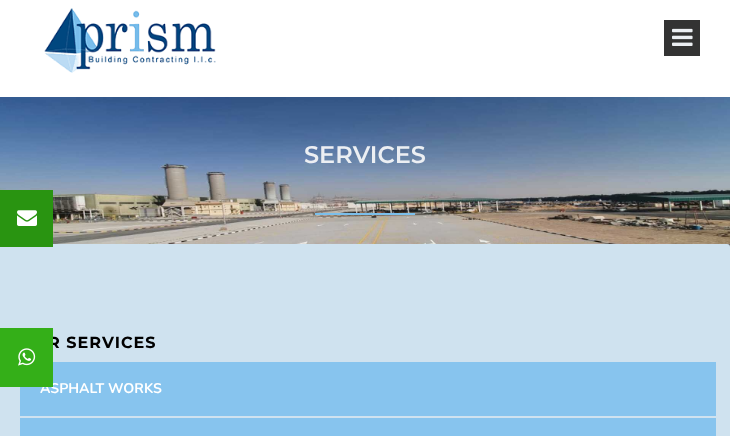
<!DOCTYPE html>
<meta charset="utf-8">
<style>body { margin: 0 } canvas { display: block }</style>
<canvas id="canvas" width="730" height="436"></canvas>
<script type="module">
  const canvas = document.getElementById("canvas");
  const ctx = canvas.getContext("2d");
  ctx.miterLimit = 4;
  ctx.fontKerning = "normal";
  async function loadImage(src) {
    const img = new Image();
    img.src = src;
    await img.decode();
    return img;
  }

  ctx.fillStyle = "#606060";
  ctx.fillRect(0, 0, 730, 436);
  ctx.drawImage(await loadImage("img4.png"), 0, 97, 730, 147);
  ctx.fillStyle = "#cfe2ef";
  ctx.beginPath();
  ctx.roundRect(0, 244, 730, 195, 3);
  ctx.fill();
  ctx.fillStyle = "#299411";
  ctx.fillRect(0, 190, 53, 57);
  ctx.drawImage(await loadImage("img1.png"), 17, 210, 20, 16);
  ctx.fillStyle = "#ffffff";
  ctx.fillRect(0, 0, 730, 97);
  ctx.drawImage(await loadImage("img2.png"), 44, 8, 172, 65);
  ctx.fillStyle = "#333333";
  ctx.fillRect(664, 20, 36, 36);
  ctx.drawImage(await loadImage("img3.png"), 672, 28, 21, 18);
  ctx.font = "600 24px Montserrat";
  ctx.fillStyle = "#eceff3";
  ctx.fillText("SERVICES", 304, 163);
  ctx.fillStyle = "rgba(255, 255, 255, 0.1)";
  ctx.fillRect(53, 213, 647, 1);
  ctx.fillStyle = "#7bbfeb";
  ctx.fillRect(315, 213, 100, 2);
  ctx.letterSpacing = "1px";
  ctx.font = "bold 16px Montserrat";
  ctx.fillStyle = "#000000";
  ctx.fillText("R SERVICES", 48, 348);
  ctx.fillStyle = "#87c4ee";
  ctx.fillRect(20, 362, 696, 54);
  ctx.letterSpacing = "0px";
  ctx.font = "bold 14px Nunito";
  ctx.fillStyle = "#ffffff";
  ctx.fillText("ASPHALT WORKS", 40, 393);
  ctx.fillStyle = "#87c4ee";
  ctx.fillRect(20, 418, 696, 18);
  ctx.fillStyle = "#34af18";
  ctx.fillRect(0, 328, 53, 59);
  ctx.drawImage(await loadImage("img5.png"), 18, 348, 18, 18);
</script>
